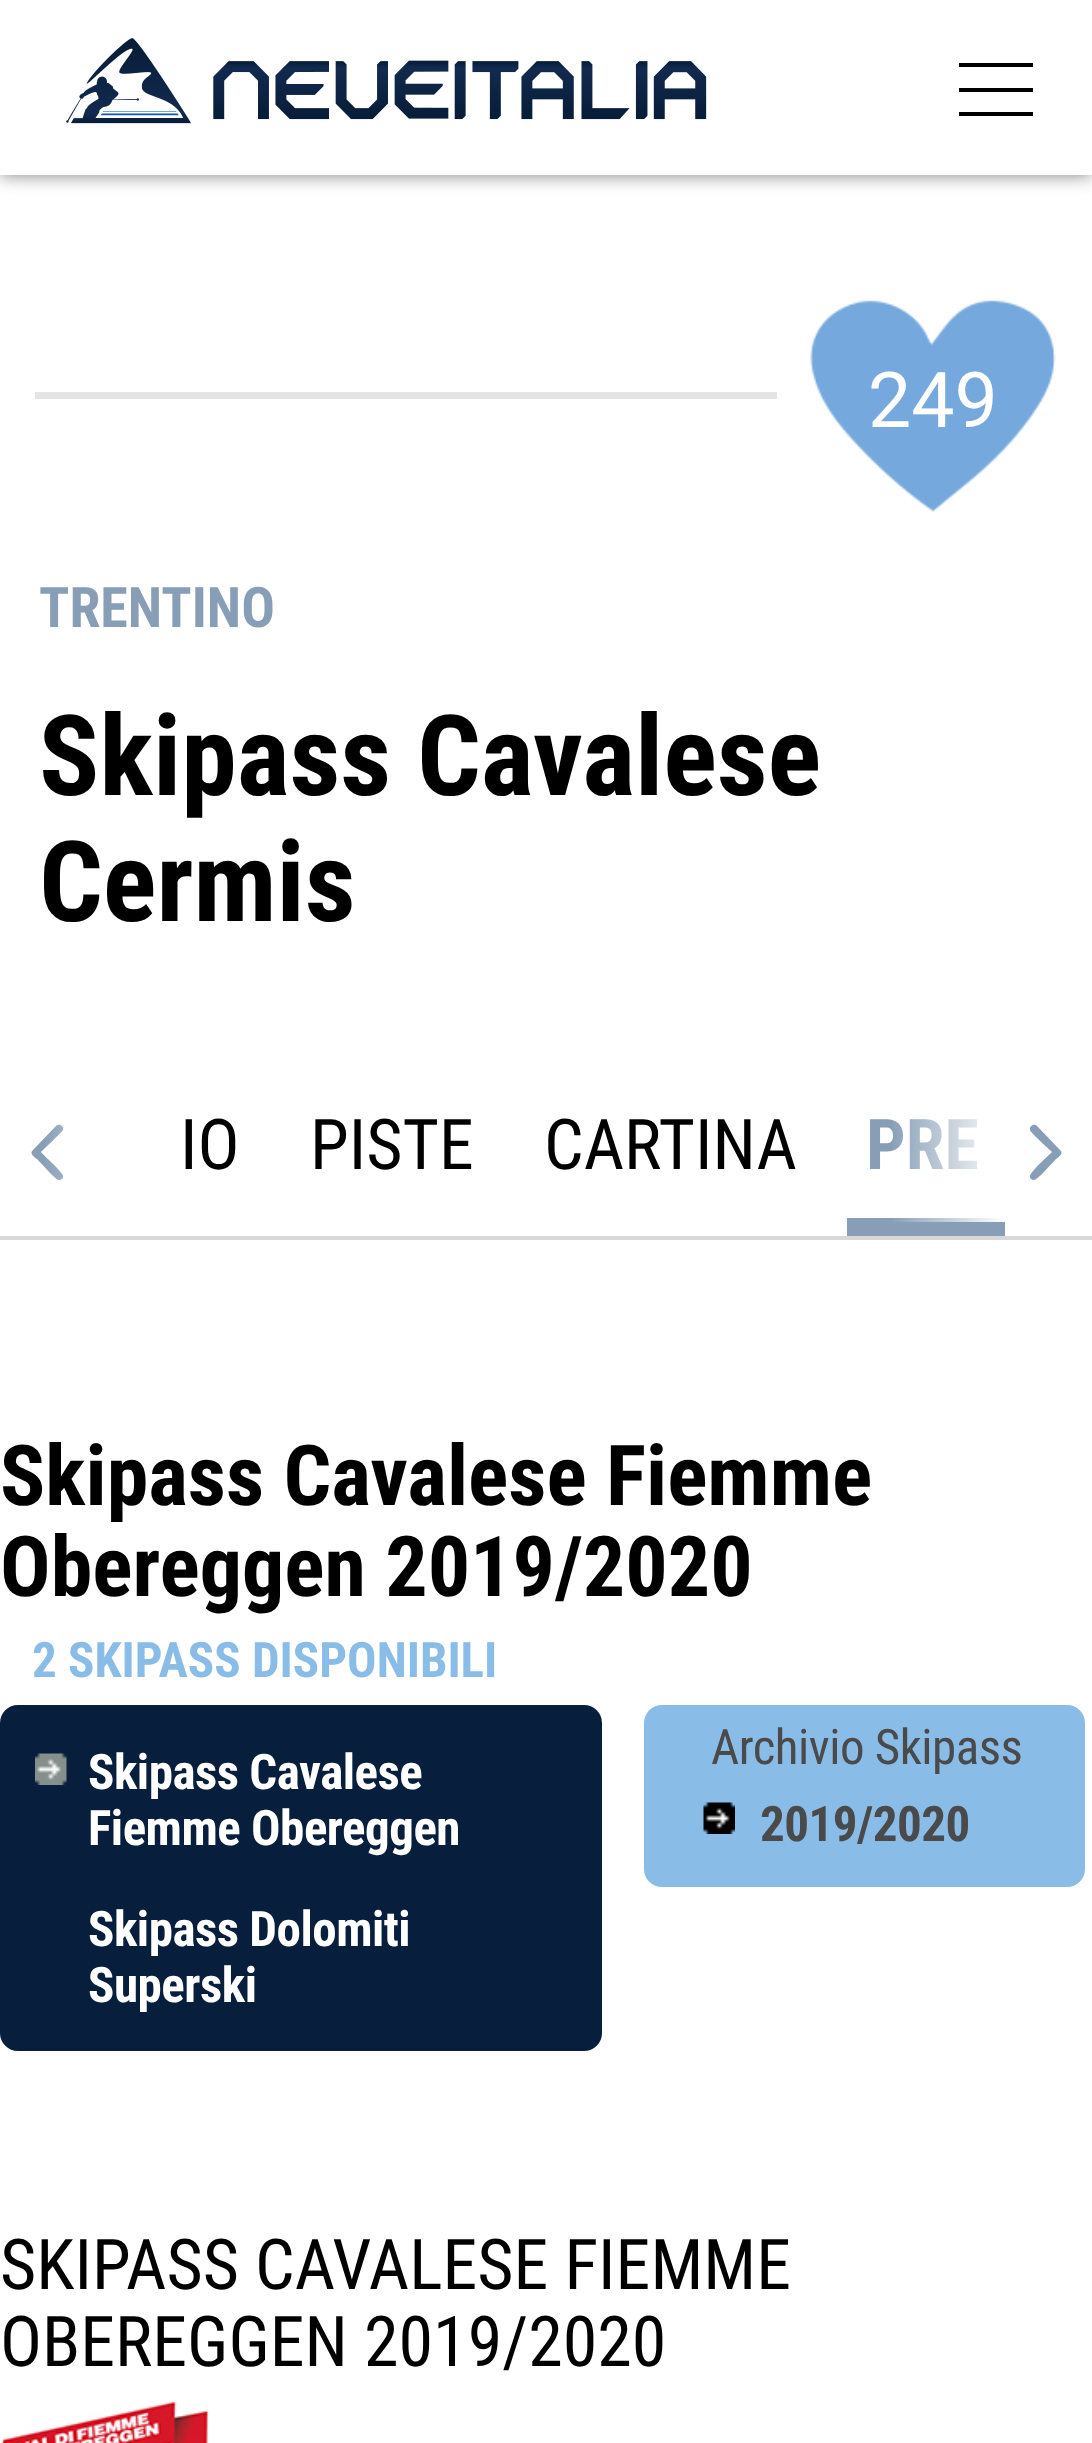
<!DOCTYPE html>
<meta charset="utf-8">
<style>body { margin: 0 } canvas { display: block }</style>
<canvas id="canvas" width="1092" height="2443"></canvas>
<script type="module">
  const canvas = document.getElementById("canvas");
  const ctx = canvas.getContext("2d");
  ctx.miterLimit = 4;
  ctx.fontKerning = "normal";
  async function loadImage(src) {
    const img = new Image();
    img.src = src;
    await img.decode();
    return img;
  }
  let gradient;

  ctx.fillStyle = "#ffffff";
  ctx.fillRect(0, 0, 1092, 2443);
  ctx.fillStyle = "rgba(0, 0, 0, 0.5)";
  ctx.filter = "blur(9px)";
  ctx.beginPath();
  ctx.rect(0, 0, 1092, 175);
  ctx.fill();
  ctx.filter = "none";
  ctx.fillStyle = "#ffffff";
  ctx.fillRect(0, 0, 1092, 175);
  ctx.drawImage(await loadImage("img1.png"), 66, 38, 641, 86);
  ctx.fillStyle = "#000000";
  ctx.fillRect(959, 63, 74, 4);
  ctx.fillRect(959, 88, 74, 4);
  ctx.fillRect(959, 112, 74, 4);
  ctx.fillStyle = "#e4e4e4";
  ctx.fillRect(35, 392, 742, 7);
  ctx.drawImage(await loadImage("img2.png"), 810, 300, 246, 212);
  ctx.font = "77px Roboto";
  ctx.fillStyle = "#ffffff";
  ctx.fillText("249", 868, 427);
  ctx.font = "bold 56px Roboto Condensed";
  ctx.fillStyle = "#879eb6";
  ctx.fillText("TRENTINO", 39, 627);
  ctx.font = "bold 112px Roboto Condensed";
  ctx.fillStyle = "#000000";
  ctx.fillText("Skipass Cavalese", 39, 795);
  ctx.fillText("Cermis", 39, 921);
  ctx.fillStyle = "#d8d8d8";
  ctx.fillRect(0, 1236, 1092, 4);
  ctx.font = "70px Roboto Condensed";
  ctx.fillStyle = "#000000";
  ctx.fillText("IO", 180, 1169);
  ctx.fillText("PISTE", 310, 1169);
  ctx.fillText("CARTINA", 544, 1169);
  ctx.fillStyle = "#879eb6";
  ctx.fillRect(847, 1218, 158, 18);
  ctx.font = "bold 70px Roboto Condensed";
  ctx.fillText("PRE", 866, 1169);
  ctx.beginPath();
  ctx.moveTo(33, 1150);
  ctx.bezierCurveTo(29, 1153, 34, 1157, 37, 1159);
  ctx.lineTo(52, 1175);
  ctx.bezierCurveTo(55, 1177, 58, 1182, 62, 1179);
  ctx.bezierCurveTo(63, 1178, 63, 1177, 63, 1176);
  ctx.bezierCurveTo(63, 1172, 44, 1156, 41, 1152);
  ctx.bezierCurveTo(44, 1149, 62, 1132, 63, 1130);
  ctx.bezierCurveTo(64, 1126, 59, 1123, 56, 1126);
  ctx.closePath();
  ctx.fill();
  gradient = ctx.createLinearGradient(158, 1125, 42, 1125);
  gradient.addColorStop(0, "#ffffff");
  gradient.addColorStop(1, "rgba(255, 255, 255, 0)");
  ctx.fillStyle = gradient;
  ctx.fillRect(45, 1124, 18, 56);
  gradient = ctx.createLinearGradient(1005, 1125, 889, 1125);
  gradient.addColorStop(0, "#ffffff");
  gradient.addColorStop(1, "rgba(255, 255, 255, 0)");
  ctx.fillStyle = gradient;
  ctx.fillRect(892, 1119, 113, 103);
  ctx.fillStyle = "#879eb6";
  ctx.beginPath();
  ctx.moveTo(1060, 1150);
  ctx.bezierCurveTo(1064, 1153, 1059, 1157, 1056, 1159);
  ctx.lineTo(1041, 1175);
  ctx.bezierCurveTo(1038, 1177, 1035, 1182, 1031, 1179);
  ctx.bezierCurveTo(1030, 1178, 1030, 1177, 1030, 1176);
  ctx.bezierCurveTo(1030, 1172, 1048, 1156, 1052, 1152);
  ctx.bezierCurveTo(1049, 1149, 1030, 1132, 1030, 1130);
  ctx.bezierCurveTo(1029, 1126, 1034, 1123, 1037, 1126);
  ctx.closePath();
  ctx.fill();
  ctx.font = "bold 84px Roboto Condensed";
  ctx.fillStyle = "#000000";
  ctx.fillText("Skipass Cavalese Fiemme", 0, 1505);
  ctx.fillText("Obereggen 2019/2020", 0, 1596);
  ctx.font = "bold 49px Roboto Condensed";
  ctx.fillStyle = "#89bce6";
  ctx.fillText("2 SKIPASS DISPONIBILI", 32, 1677);
  ctx.fillStyle = "#071e3d";
  ctx.beginPath();
  ctx.roundRect(0, 1705, 602, 346, 18);
  ctx.fill();
  ctx.drawImage(await loadImage("img3.png"), 35, 1753, 32, 32);
  ctx.letterSpacing = "-0.5px";
  ctx.fillStyle = "#ffffff";
  ctx.fillText("Skipass Cavalese", 88, 1789);
  ctx.fillText("Fiemme Obereggen", 88, 1845);
  ctx.fillText("Skipass Dolomiti", 88, 1946);
  ctx.fillText("Superski", 88, 2002);
  ctx.fillStyle = "#89bce6";
  ctx.beginPath();
  ctx.roundRect(644, 1705, 441, 182, 18);
  ctx.fill();
  ctx.font = "49px Roboto Condensed";
  ctx.fillStyle = "#4a4a4a";
  ctx.fillText("Archivio Skipass", 711, 1764);
  ctx.drawImage(await loadImage("img4.png"), 703, 1802, 32, 32);
  ctx.font = "bold 49px Roboto Condensed";
  ctx.fillText("2019/2020", 760, 1841);
  ctx.letterSpacing = "0px";
  ctx.font = "70px Roboto Condensed";
  ctx.fillStyle = "#000000";
  ctx.fillText("SKIPASS CAVALESE FIEMME", 0, 2289);
  ctx.fillText("OBEREGGEN 2019/2020", 0, 2366);
  ctx.drawImage(await loadImage("img5.png"), 1, 2401, 208, 42);
</script>
